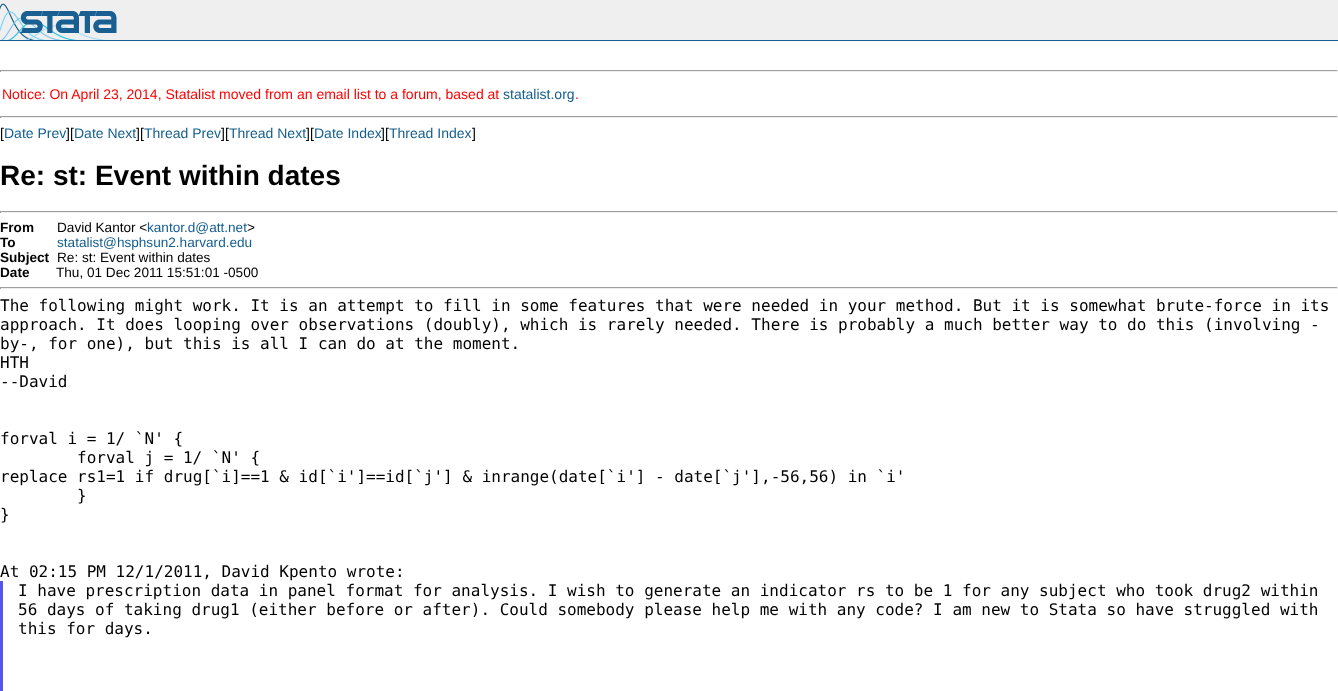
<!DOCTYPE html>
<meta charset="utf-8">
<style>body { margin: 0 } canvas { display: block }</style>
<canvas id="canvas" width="1338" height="691"></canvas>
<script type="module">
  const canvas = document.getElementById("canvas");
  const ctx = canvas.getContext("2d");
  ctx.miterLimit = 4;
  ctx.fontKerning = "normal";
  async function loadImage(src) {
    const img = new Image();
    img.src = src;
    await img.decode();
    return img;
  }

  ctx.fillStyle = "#ffffff";
  ctx.fillRect(0, 0, 1338, 691);
  ctx.fillStyle = "#efefef";
  ctx.fillRect(0, 0, 1338, 40);
  ctx.fillStyle = "#145e8f";
  ctx.fillRect(0, 40, 1338, 1);
  ctx.drawImage(await loadImage("img1.png"), 0, 3, 117, 37);
  ctx.fillStyle = "#9f9f9f";
  ctx.fillRect(0, 70, 1338, 1);
  ctx.fillStyle = "#eeeeee";
  ctx.fillRect(1337, 70, 1, 2);
  ctx.fillRect(0, 71, 1338, 1);
  ctx.fillStyle = "#9f9f9f";
  ctx.fillRect(0, 70, 1, 2);
  ctx.font = "14px Liberation Sans";
  ctx.fillStyle = "#ff0000";
  ctx.fillText("Notice: On April 23, 2014, Statalist moved from an email list to a forum, based at", 2, 99);
  ctx.fillStyle = "#145e8f";
  ctx.fillText("statalist.org", 503, 99);
  ctx.fillStyle = "#ff0000";
  ctx.fillText(".", 575, 99);
  ctx.fillStyle = "#9f9f9f";
  ctx.fillRect(0, 116, 1338, 1);
  ctx.fillStyle = "#eeeeee";
  ctx.fillRect(1337, 116, 1, 2);
  ctx.fillRect(0, 117, 1338, 1);
  ctx.fillStyle = "#9f9f9f";
  ctx.fillRect(0, 116, 1, 2);
  ctx.fillStyle = "#000000";
  ctx.fillText("[", 0, 138);
  ctx.fillStyle = "#145e8f";
  ctx.fillText("Date Prev", 4, 138);
  ctx.fillStyle = "#000000";
  ctx.fillText("][", 66, 138);
  ctx.fillStyle = "#145e8f";
  ctx.fillText("Date Next", 74, 138);
  ctx.fillStyle = "#000000";
  ctx.fillText("][", 136, 138);
  ctx.fillStyle = "#145e8f";
  ctx.fillText("Thread Prev", 144, 138);
  ctx.fillStyle = "#000000";
  ctx.fillText("][", 221, 138);
  ctx.fillStyle = "#145e8f";
  ctx.fillText("Thread Next", 229, 138);
  ctx.fillStyle = "#000000";
  ctx.fillText("][", 306, 138);
  ctx.fillStyle = "#145e8f";
  ctx.fillText("Date Index", 314, 138);
  ctx.fillStyle = "#000000";
  ctx.fillText("][", 381, 138);
  ctx.fillStyle = "#145e8f";
  ctx.fillText("Thread Index", 389, 138);
  ctx.fillStyle = "#000000";
  ctx.fillText("]", 472, 138);
  ctx.font = "bold 28px Liberation Sans";
  ctx.fillText("Re: st: Event within dates", 0, 185);
  ctx.fillStyle = "#9f9f9f";
  ctx.fillRect(0, 211, 1338, 1);
  ctx.fillStyle = "#eeeeee";
  ctx.fillRect(1337, 211, 1, 2);
  ctx.fillRect(0, 212, 1338, 1);
  ctx.fillStyle = "#9f9f9f";
  ctx.fillRect(0, 211, 1, 2);
  ctx.font = "bold 13.6px Liberation Sans";
  ctx.fillStyle = "#000000";
  ctx.fillText("From", 0, 232);
  ctx.font = "13.6px Liberation Sans";
  ctx.fillText("David Kantor <", 57, 232);
  ctx.fillStyle = "#145e8f";
  ctx.fillText("kantor.d@att.net", 147, 232);
  ctx.fillStyle = "#000000";
  ctx.fillText(">", 247, 232);
  ctx.font = "bold 13.6px Liberation Sans";
  ctx.fillText("To", 0, 247);
  ctx.font = "13.6px Liberation Sans";
  ctx.fillStyle = "#145e8f";
  ctx.fillText("statalist@hsphsun2.harvard.edu", 57, 247);
  ctx.font = "bold 13.6px Liberation Sans";
  ctx.fillStyle = "#000000";
  ctx.fillText("Subject", 0, 262);
  ctx.font = "13.6px Liberation Sans";
  ctx.fillText("Re: st: Event within dates", 57, 262);
  ctx.font = "bold 13.6px Liberation Sans";
  ctx.fillText("Date", 0, 277);
  ctx.font = "13.6px Liberation Sans";
  ctx.fillText("Thu, 01 Dec 2011 15:51:01 -0500", 56, 277);
  ctx.fillStyle = "#9f9f9f";
  ctx.fillRect(0, 287, 1338, 1);
  ctx.fillStyle = "#eeeeee";
  ctx.fillRect(1337, 287, 1, 2);
  ctx.fillRect(0, 288, 1338, 1);
  ctx.fillStyle = "#9f9f9f";
  ctx.fillRect(0, 287, 1, 2);
  ctx.font = "16px DejaVu Sans Mono";
  ctx.fillStyle = "#000000";
  ctx.fillText("The following might work. It is an attempt to fill in some features that were needed in your method. But it is somewhat brute-force in its", 0, 311);
  ctx.fillText("approach. It does looping over observations (doubly), which is rarely needed. There is probably a much better way to do this (involving -", 0, 330);
  ctx.fillText("by-, for one), but this is all I can do at the moment.", 0, 349);
  ctx.fillText("HTH", 0, 368);
  ctx.fillText("--David", 0, 387);
  ctx.fillText("forval i = 1/ `N' {", 0, 444);
  ctx.fillText("forval j = 1/ `N' {", 77, 463);
  ctx.fillText("replace rs1=1 if drug[`i]==1 & id[`i']==id[`j'] & inrange(date[`i'] - date[`j'],-56,56) in `i'", 0, 482);
  ctx.fillText("}", 77, 501);
  ctx.fillText("}", 0, 520);
  ctx.fillText("At 02:15 PM 12/1/2011, David Kpento wrote:", 0, 577);
  ctx.fillStyle = "#5555ee";
  ctx.fillRect(0, 581, 3, 110);
  ctx.fillStyle = "#000000";
  ctx.fillText("I have prescription data in panel format for analysis. I wish to generate an indicator rs to be 1 for any subject who took drug2 within", 18, 596);
  ctx.fillText("56 days of taking drug1 (either before or after). Could somebody please help me with any code? I am new to Stata so have struggled with", 18, 615);
  ctx.fillText("this for days.", 18, 634);
</script>
